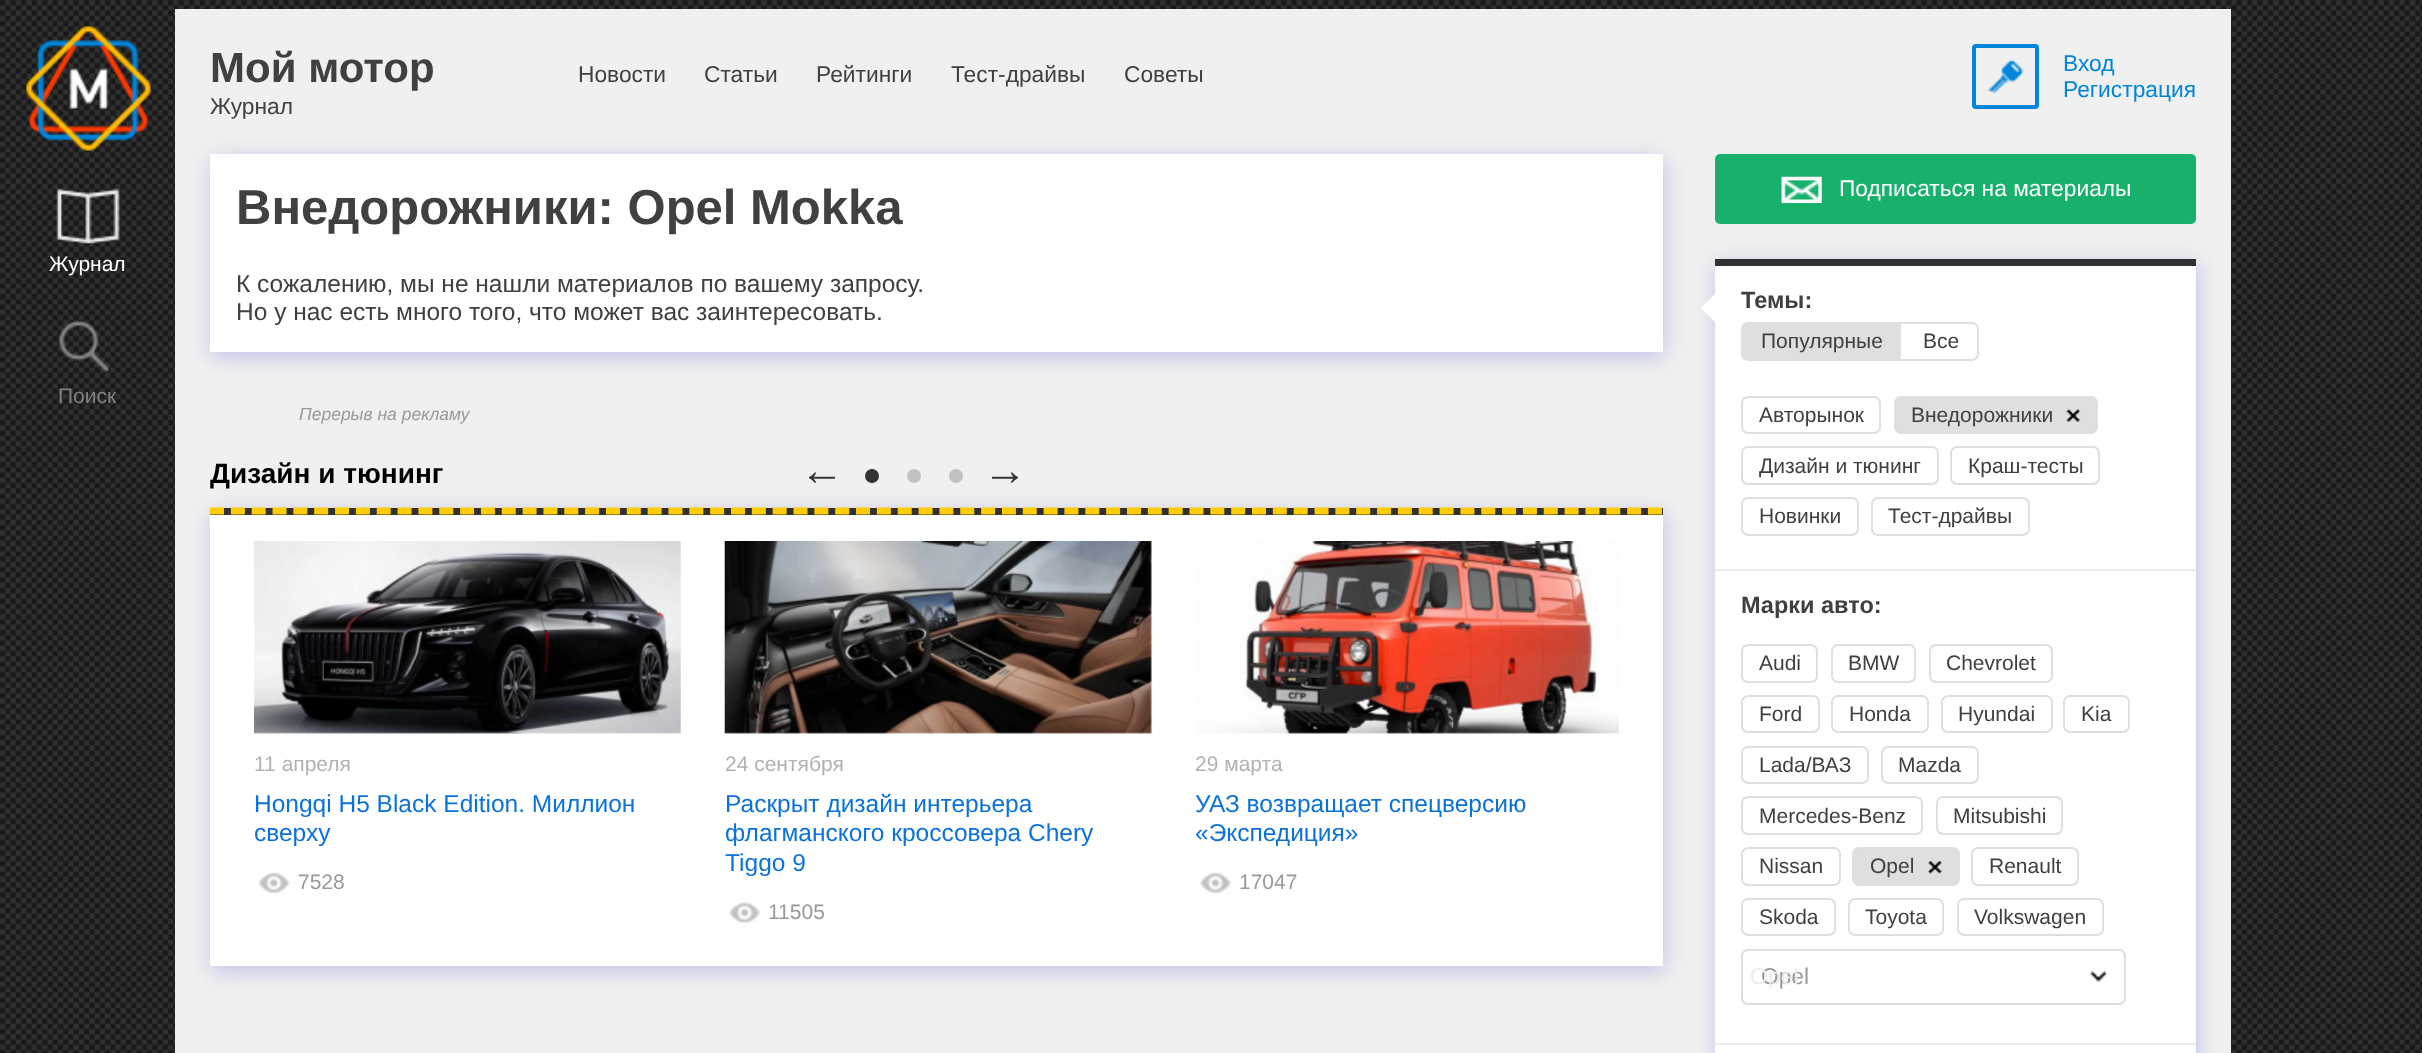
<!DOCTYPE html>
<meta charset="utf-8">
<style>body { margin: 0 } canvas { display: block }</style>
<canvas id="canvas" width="2422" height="1053"></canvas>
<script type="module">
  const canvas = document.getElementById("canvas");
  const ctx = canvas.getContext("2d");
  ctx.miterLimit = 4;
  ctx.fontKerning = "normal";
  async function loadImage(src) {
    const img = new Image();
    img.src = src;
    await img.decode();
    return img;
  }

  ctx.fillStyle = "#ffffff";
  ctx.fillRect(0, 0, 2422, 1053);
  ctx.drawImage(await loadImage("img1.png"), 0, 0, 2422, 1053);
  ctx.drawImage(await loadImage("img2.png"), 26, 26, 125, 125);
  ctx.drawImage(await loadImage("img3.png"), 56, 188, 64, 56);
  ctx.font = "21px Liberation Sans";
  ctx.fillText("Журнал", 49, 271);
  ctx.drawImage(await loadImage("img4.png"), 59, 320, 50, 52);
  ctx.fillStyle = "#828282";
  ctx.fillText("Поиск", 58, 403);
  ctx.fillStyle = "#f0f0f0";
  ctx.fillRect(175, 9, 2056, 1044);
  ctx.font = "bold 42px Liberation Sans";
  ctx.fillStyle = "#404040";
  ctx.fillText("Мой мотор", 210, 82);
  ctx.font = "22.75px Liberation Sans";
  ctx.fillText("Журнал", 210, 114);
  ctx.fillText("Новости", 578, 82);
  ctx.fillText("Статьи", 704, 82);
  ctx.fillText("Рейтинги", 816, 82);
  ctx.fillText("Тест-драйвы", 951, 82);
  ctx.fillText("Советы", 1124, 82);
  ctx.beginPath();
  ctx.roundRect(1974, 46, 63, 61, 2);
  ctx.strokeStyle = "#0085da";
  ctx.lineWidth = 4;
  ctx.stroke();
  ctx.drawImage(await loadImage("img5.png"), 1987, 59, 37, 35);
  ctx.fillStyle = "#0085da";
  ctx.fillText("Вход", 2063, 71);
  ctx.fillText("Регистрация", 2063, 97);
  ctx.fillStyle = "rgba(0, 9, 200, 0.2)";
  ctx.filter = "blur(10.5px)";
  ctx.beginPath();
  ctx.rect(212, 159, 1452, 198);
  ctx.fill();
  ctx.filter = "none";
  ctx.fillStyle = "#ffffff";
  ctx.fillRect(210, 154, 1453, 198);
  ctx.font = "bold 49px Liberation Sans";
  ctx.fillStyle = "#404040";
  ctx.fillText("Внедорожники: Opel Mokka", 236, 224);
  ctx.font = "24.5px Liberation Sans";
  ctx.fillText("К сожалению, мы не нашли материалов по вашему запросу.", 236, 292);
  ctx.fillText("Но у нас есть много того, что может вас заинтересовать.", 236, 320);
  ctx.font = "italic 17.5px Liberation Sans";
  ctx.fillStyle = "#999999";
  ctx.fillText("Перерыв на рекламу", 299, 420);
  ctx.font = "bold 28px Liberation Sans";
  ctx.fillStyle = "#000000";
  ctx.fillText("Дизайн и тюнинг", 210, 483);
  ctx.fillStyle = "rgba(0, 9, 200, 0.2)";
  ctx.filter = "blur(10.5px)";
  ctx.beginPath();
  ctx.rect(212, 513, 1452, 458);
  ctx.fill();
  ctx.filter = "none";
  ctx.fillStyle = "#ffffff";
  ctx.fillRect(210, 515, 1453, 451);
  ctx.fillStyle = "#303030";
  ctx.fillRect(210, 508, 1453, 7);
  ctx.beginPath();
  ctx.moveTo(210, 511);
  ctx.lineTo(1662.5, 511);
  ctx.strokeStyle = "#ffcc01";
  ctx.lineWidth = 7;
  ctx.setLineDash([14, 6.84]);
  ctx.stroke();
  ctx.font = "44px Liberation Sans";
  ctx.fillStyle = "#333333";
  ctx.fillText("←", 800, 485);
  ctx.beginPath();
  ctx.arc(872, 476, 7, 0, Math.PI * 2);
  ctx.fill();
  ctx.fillStyle = "#c1c1c1";
  ctx.beginPath();
  ctx.arc(914, 476, 7, 0, Math.PI * 2);
  ctx.fill();
  ctx.beginPath();
  ctx.arc(956, 476, 7, 0, Math.PI * 2);
  ctx.fill();
  ctx.fillStyle = "#333333";
  ctx.fillText("→", 983, 485);
  ctx.drawImage(await loadImage("img6.png"), 254, 541, 427, 193);
  ctx.font = "21px Liberation Sans";
  ctx.fillStyle = "#b2b2b2";
  ctx.fillText("11 апреля", 254, 771);
  ctx.font = "24.5px Liberation Sans";
  ctx.fillStyle = "#0b72db";
  ctx.fillText("Hongqi H5 Black Edition. Миллион", 254, 812);
  ctx.fillText("сверху", 254, 841);
  ctx.drawImage(await loadImage("img7.png"), 258, 872, 32, 22);
  ctx.font = "21px Liberation Sans";
  ctx.fillStyle = "#999999";
  ctx.fillText("7528", 298, 889);
  ctx.drawImage(await loadImage("img8.png"), 724, 541, 428, 193);
  ctx.fillStyle = "#b2b2b2";
  ctx.fillText("24 сентября", 725, 771);
  ctx.font = "24.5px Liberation Sans";
  ctx.fillStyle = "#0b72db";
  ctx.fillText("Раскрыт дизайн интерьера", 725, 812);
  ctx.fillText("флагманского кроссовера Chery", 725, 841);
  ctx.fillText("Tiggo 9", 725, 871);
  ctx.drawImage(await loadImage("img9.png"), 729, 902, 31, 21);
  ctx.font = "21px Liberation Sans";
  ctx.fillStyle = "#999999";
  ctx.fillText("11505", 768, 919);
  ctx.drawImage(await loadImage("img10.png"), 1196, 541, 423, 193);
  ctx.fillStyle = "#b2b2b2";
  ctx.fillText("29 марта", 1195, 771);
  ctx.font = "24.5px Liberation Sans";
  ctx.fillStyle = "#0b72db";
  ctx.fillText("УАЗ возвращает спецверсию", 1195, 812);
  ctx.fillText("«Экспедиция»", 1195, 841);
  ctx.drawImage(await loadImage("img11.png"), 1200, 872, 31, 22);
  ctx.font = "21px Liberation Sans";
  ctx.fillStyle = "#999999";
  ctx.fillText("17047", 1239, 889);
  ctx.fillStyle = "#17b16b";
  ctx.beginPath();
  ctx.roundRect(1715, 154, 481, 70, 5);
  ctx.fill();
  ctx.drawImage(await loadImage("img12.png"), 1781, 176, 41, 27);
  ctx.font = "22.75px Liberation Sans";
  ctx.fillStyle = "#ffffff";
  ctx.fillText("Подписаться на материалы", 1839, 196);
  ctx.fillStyle = "rgba(0, 9, 200, 0.2)";
  ctx.filter = "blur(10.5px)";
  ctx.beginPath();
  ctx.rect(1717, 264, 481, 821);
  ctx.fill();
  ctx.filter = "none";
  ctx.fillStyle = "#ffffff";
  ctx.fillRect(1715, 266, 481, 787);
  ctx.fillStyle = "#303030";
  ctx.fillRect(1715, 259, 481, 7);
  ctx.fillStyle = "#ffffff";
  ctx.beginPath();
  ctx.moveTo(1715, 294);
  ctx.lineTo(1715, 322);
  ctx.lineTo(1701, 308);
  ctx.closePath();
  ctx.fill();
  ctx.fillStyle = "#eaeaea";
  ctx.fillRect(1715, 569, 481, 2);
  ctx.font = "bold 23.5px Liberation Sans";
  ctx.fillStyle = "#404040";
  ctx.fillText("Темы:", 1741, 308);
  ctx.beginPath();
  ctx.roundRect(1742, 323, 236, 37, 6);
  ctx.strokeStyle = "#dfdfdf";
  ctx.lineWidth = 2;
  ctx.setLineDash([]);
  ctx.stroke();
  ctx.fillStyle = "#dfdfdf";
  ctx.fillRect(1743, 324, 158, 35);
  ctx.font = "21px Liberation Sans";
  ctx.fillStyle = "#404040";
  ctx.fillText("Популярные", 1761, 348);
  ctx.fillText("Все", 1923, 348);
  ctx.beginPath();
  ctx.roundRect(1742, 397, 138, 36, 6);
  ctx.stroke();
  ctx.fillText("Авторынок", 1759, 422);
  ctx.fillStyle = "#dfdfdf";
  ctx.beginPath();
  ctx.roundRect(1895, 397, 202, 36, 6);
  ctx.fill();
  ctx.stroke();
  ctx.fillStyle = "#404040";
  ctx.fillText("Внедорожники", 1911, 422);
  ctx.drawImage(await loadImage("img13.png"), 2066, 409, 15, 13);
  ctx.beginPath();
  ctx.roundRect(1742, 447, 196, 37, 6);
  ctx.stroke();
  ctx.fillText("Дизайн и тюнинг", 1759, 473);
  ctx.beginPath();
  ctx.roundRect(1951, 447, 148, 37, 6);
  ctx.stroke();
  ctx.fillText("Краш-тесты", 1968, 473);
  ctx.beginPath();
  ctx.roundRect(1742, 498, 116, 37, 6);
  ctx.stroke();
  ctx.fillText("Новинки", 1759, 523);
  ctx.beginPath();
  ctx.roundRect(1872, 498, 157, 37, 6);
  ctx.stroke();
  ctx.fillText("Тест-драйвы", 1888, 523);
  ctx.fillStyle = "#eaeaea";
  ctx.fillRect(1715, 1043, 481, 2);
  ctx.font = "bold 23.5px Liberation Sans";
  ctx.fillStyle = "#404040";
  ctx.fillText("Марки авто:", 1741, 613);
  ctx.beginPath();
  ctx.roundRect(1742, 645, 75, 37, 6);
  ctx.stroke();
  ctx.font = "21px Liberation Sans";
  ctx.fillText("Audi", 1759, 670);
  ctx.beginPath();
  ctx.roundRect(1832, 645, 83, 37, 6);
  ctx.stroke();
  ctx.fillText("BMW", 1848, 670);
  ctx.beginPath();
  ctx.roundRect(1930, 645, 122, 37, 6);
  ctx.stroke();
  ctx.fillText("Chevrolet", 1946, 670);
  ctx.beginPath();
  ctx.roundRect(1742, 696, 77, 36, 6);
  ctx.stroke();
  ctx.fillText("Ford", 1759, 721);
  ctx.beginPath();
  ctx.roundRect(1832, 696, 96, 36, 6);
  ctx.stroke();
  ctx.fillText("Honda", 1849, 721);
  ctx.beginPath();
  ctx.roundRect(1942, 696, 110, 36, 6);
  ctx.stroke();
  ctx.fillText("Hyundai", 1958, 721);
  ctx.beginPath();
  ctx.roundRect(2064, 696, 65, 36, 6);
  ctx.stroke();
  ctx.fillText("Kia", 2081, 721);
  ctx.beginPath();
  ctx.roundRect(1742, 747, 126, 36, 6);
  ctx.stroke();
  ctx.fillText("Lada/ВАЗ", 1759, 772);
  ctx.beginPath();
  ctx.roundRect(1882, 747, 96, 36, 6);
  ctx.stroke();
  ctx.fillText("Mazda", 1898, 772);
  ctx.beginPath();
  ctx.roundRect(1742, 797, 180, 37, 6);
  ctx.stroke();
  ctx.fillText("Mercedes-Benz", 1759, 823);
  ctx.beginPath();
  ctx.roundRect(1937, 797, 125, 37, 6);
  ctx.stroke();
  ctx.fillText("Mitsubishi", 1953, 823);
  ctx.beginPath();
  ctx.roundRect(1742, 848, 98, 37, 6);
  ctx.stroke();
  ctx.fillText("Nissan", 1759, 873);
  ctx.fillStyle = "#dfdfdf";
  ctx.beginPath();
  ctx.roundRect(1853, 848, 106, 37, 6);
  ctx.fill();
  ctx.stroke();
  ctx.fillStyle = "#404040";
  ctx.fillText("Opel", 1870, 873);
  ctx.drawImage(await loadImage("img14.png"), 1928, 861, 15, 13);
  ctx.beginPath();
  ctx.roundRect(1972, 848, 106, 37, 6);
  ctx.stroke();
  ctx.fillText("Renault", 1989, 873);
  ctx.beginPath();
  ctx.roundRect(1742, 899, 93, 36, 6);
  ctx.stroke();
  ctx.fillText("Skoda", 1759, 924);
  ctx.beginPath();
  ctx.roundRect(1849, 899, 94, 36, 6);
  ctx.stroke();
  ctx.fillText("Toyota", 1865, 924);
  ctx.beginPath();
  ctx.roundRect(1958, 899, 145, 36, 6);
  ctx.stroke();
  ctx.fillText("Volkswagen", 1974, 924);
  ctx.drawImage(await loadImage("img15.png"), 2089, 971, 19, 11);
  ctx.beginPath();
  ctx.roundRect(1742, 950, 383, 54, 6);
  ctx.stroke();
  ctx.font = "22.75px Liberation Sans";
  ctx.fillStyle = "#999999";
  ctx.fillText("Opel", 1761, 984);
  ctx.font = "23px Liberation Sans";
  ctx.fillStyle = "#ececec";
  ctx.fillText("Opel", 1750, 984);
</script>
